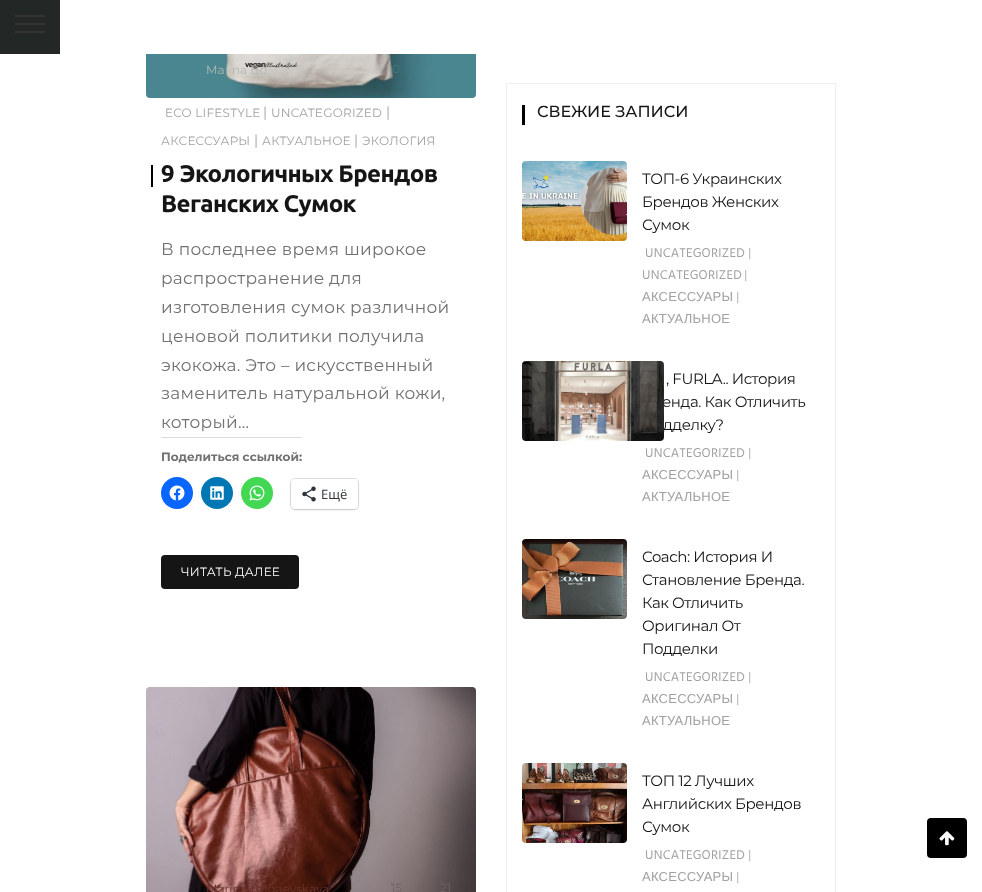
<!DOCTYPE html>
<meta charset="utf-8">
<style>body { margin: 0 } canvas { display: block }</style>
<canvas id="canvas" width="982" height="892"></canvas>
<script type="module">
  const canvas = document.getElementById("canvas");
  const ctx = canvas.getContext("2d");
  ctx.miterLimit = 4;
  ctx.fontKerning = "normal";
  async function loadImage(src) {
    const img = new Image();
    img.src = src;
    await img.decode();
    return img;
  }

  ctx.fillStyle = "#ffffff";
  ctx.fillRect(0, 0, 982, 892);
  ctx.fillStyle = "#232826";
  ctx.fillRect(0, 0, 60, 54);
  ctx.fillStyle = "#333333";
  ctx.fillRect(15, 15, 30, 2);
  ctx.fillRect(15, 23, 30, 2);
  ctx.fillRect(15, 31, 30, 2);
  ctx.drawImage(await loadImage("img1.png"), 146, 54, 330, 44);
  ctx.font = "12px Montserrat";
  ctx.fillStyle = "#b1b8b5";
  ctx.fillText("Ma", 206, 74);
  ctx.fillText("na Bo", 232, 74);
  ctx.fillStyle = "#447a84";
  ctx.fillText("0", 392, 73);
  ctx.letterSpacing = "0.25px";
  ctx.fillStyle = "#a1a1a1";
  ctx.fillText("ECO LIFESTYLE", 165, 117);
  ctx.font = "14px Montserrat";
  ctx.fillText("|", 263, 117);
  ctx.font = "12px Montserrat";
  ctx.fillText("UNCATEGORIZED", 271, 117);
  ctx.font = "14px Montserrat";
  ctx.fillText("|", 386, 117);
  ctx.font = "12px Montserrat";
  ctx.fillText("АКСЕССУАРЫ", 161, 145);
  ctx.font = "14px Montserrat";
  ctx.fillText("|", 254, 145);
  ctx.font = "12px Montserrat";
  ctx.fillText("АКТУАЛЬНОЕ", 262, 145);
  ctx.font = "14px Montserrat";
  ctx.fillText("|", 354, 145);
  ctx.font = "12px Montserrat";
  ctx.fillText("ЭКОЛОГИЯ", 362, 145);
  ctx.fillStyle = "#000000";
  ctx.fillRect(151, 165, 2, 22);
  ctx.letterSpacing = "-0.6px";
  ctx.font = "bold 24px Ubuntu";
  ctx.fillStyle = "#151515";
  ctx.fillText("9 Экологичных Брендов", 161, 182);
  ctx.fillText("Веганских Сумок", 161, 212);
  ctx.letterSpacing = "0.25px";
  ctx.font = "17px Montserrat";
  ctx.fillStyle = "#717171";
  ctx.fillText("В последнее время широкое", 161, 255);
  ctx.fillText("распространение для", 161, 284);
  ctx.fillText("изготовления сумок различной", 161, 313);
  ctx.fillText("ценовой политики получила", 161, 342);
  ctx.fillText("экокожа. Это – искусственный", 161, 371);
  ctx.fillText("заменитель натуральной кожи,", 161, 399);
  ctx.fillText("который…", 161, 428);
  ctx.fillStyle = "#dcdcde";
  ctx.fillRect(161, 437, 141, 1);
  ctx.letterSpacing = "0px";
  ctx.font = "bold 12px Montserrat";
  ctx.fillStyle = "#717171";
  ctx.fillText("Поделиться ссылкой:", 161, 461);
  ctx.fillStyle = "#0866ff";
  ctx.beginPath();
  ctx.arc(177, 493, 16, 0, Math.PI * 2);
  ctx.fill();
  ctx.drawImage(await loadImage("img2.png"), 169, 485, 16, 16);
  ctx.fillStyle = "#0077b5";
  ctx.beginPath();
  ctx.arc(217, 493, 16, 0, Math.PI * 2);
  ctx.fill();
  ctx.drawImage(await loadImage("img3.png"), 210, 486, 14, 14);
  ctx.fillStyle = "#43d854";
  ctx.beginPath();
  ctx.arc(257, 493, 16, 0, Math.PI * 2);
  ctx.fill();
  ctx.drawImage(await loadImage("img4.png"), 249, 485, 16, 16);
  ctx.beginPath();
  ctx.roundRect(290.5, 478.5, 68, 31, 4.5);
  ctx.strokeStyle = "#e0e0e0";
  ctx.stroke();
  ctx.fillStyle = "rgba(0, 0, 0, 0.12)";
  ctx.filter = "blur(1px)";
  ctx.beginPath();
  ctx.roundRect(291, 480, 67, 30, 4);
  ctx.fill();
  ctx.filter = "none";
  ctx.fillStyle = "#ffffff";
  ctx.beginPath();
  ctx.roundRect(291, 479, 67, 30, 4);
  ctx.fill();
  ctx.drawImage(await loadImage("img5.png"), 302, 486, 14, 16);
  ctx.font = "13px Open Sans";
  ctx.fillStyle = "#2c3338";
  ctx.fillText("Ещё", 321, 499);
  ctx.fillStyle = "#151515";
  ctx.beginPath();
  ctx.roundRect(161, 555, 138, 34, 4);
  ctx.fill();
  ctx.letterSpacing = "0.25px";
  ctx.font = "12px Montserrat";
  ctx.fillStyle = "#ffffff";
  ctx.fillText("ЧИТАТЬ ДАЛЕЕ", 181, 576);
  ctx.drawImage(await loadImage("img6.png"), 146, 687, 330, 205);
  ctx.letterSpacing = "0px";
  ctx.fillStyle = "#68342c";
  ctx.fillText("Marina Bogaevskaya", 206, 893);
  ctx.fillStyle = "#716465";
  ctx.fillText("15", 391, 892);
  ctx.fillText("21", 440, 892);
  ctx.strokeStyle = "#eeeeee";
  ctx.strokeRect(506.5, 83.5, 329, 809);
  ctx.fillStyle = "#000000";
  ctx.fillRect(522, 105, 3, 20);
  ctx.font = "500 16px Montserrat";
  ctx.fillStyle = "#151515";
  ctx.fillText("СВЕЖИЕ ЗАПИСИ", 537, 117);
  ctx.drawImage(await loadImage("img7.png"), 522, 161, 105, 80);
  ctx.letterSpacing = "-0.4px";
  ctx.font = "15px Montserrat";
  ctx.fillText("ТОП-6 Украинских", 642, 184);
  ctx.fillText("Брендов Женских", 642, 207);
  ctx.fillText("Сумок", 642, 230);
  ctx.letterSpacing = "0.25px";
  ctx.font = "13px Hind";
  ctx.fillStyle = "#a1a1a1";
  ctx.fillText("UNCATEGORIZED", 645, 257);
  ctx.font = "12px Montserrat";
  ctx.fillText("|", 748, 257);
  ctx.font = "13px Hind";
  ctx.fillText("UNCATEGORIZED", 642, 279);
  ctx.font = "12px Montserrat";
  ctx.fillText("|", 744, 279);
  ctx.font = "13px Liberation Sans";
  ctx.fillText("АКСЕССУАРЫ", 642, 301);
  ctx.font = "12px Montserrat";
  ctx.fillText("|", 736, 301);
  ctx.font = "13px Liberation Sans";
  ctx.fillText("АКТУАЛЬНОЕ", 642, 323);
  ctx.letterSpacing = "-0.4px";
  ctx.font = "15px Montserrat";
  ctx.fillStyle = "#151515";
  ctx.fillText("енда. Как Отличить", 662, 407);
  ctx.fillText("дделку?", 663, 430);
  ctx.drawImage(await loadImage("img8.png"), 522, 361, 142, 80);
  ctx.fillText(", FURLA.. История", 666, 384);
  ctx.letterSpacing = "0.25px";
  ctx.font = "13px Hind";
  ctx.fillStyle = "#a1a1a1";
  ctx.fillText("UNCATEGORIZED", 645, 457);
  ctx.font = "12px Montserrat";
  ctx.fillText("|", 748, 457);
  ctx.font = "13px Liberation Sans";
  ctx.fillText("АКСЕССУАРЫ", 642, 479);
  ctx.font = "12px Montserrat";
  ctx.fillText("|", 736, 479);
  ctx.font = "13px Liberation Sans";
  ctx.fillText("АКТУАЛЬНОЕ", 642, 501);
  ctx.drawImage(await loadImage("img9.png"), 522, 539, 105, 80);
  ctx.letterSpacing = "-0.4px";
  ctx.font = "15px Montserrat";
  ctx.fillStyle = "#151515";
  ctx.fillText("Coach: История И", 642, 562);
  ctx.fillText("Становление Бренда.", 642, 585);
  ctx.fillText("Как Отличить", 642, 608);
  ctx.fillText("Оригинал От", 642, 631);
  ctx.fillText("Подделки", 642, 654);
  ctx.letterSpacing = "0.25px";
  ctx.font = "13px Hind";
  ctx.fillStyle = "#a1a1a1";
  ctx.fillText("UNCATEGORIZED", 645, 681);
  ctx.font = "12px Montserrat";
  ctx.fillText("|", 748, 681);
  ctx.font = "13px Liberation Sans";
  ctx.fillText("АКСЕССУАРЫ", 642, 703);
  ctx.font = "12px Montserrat";
  ctx.fillText("|", 736, 703);
  ctx.font = "13px Liberation Sans";
  ctx.fillText("АКТУАЛЬНОЕ", 642, 725);
  ctx.drawImage(await loadImage("img10.png"), 522, 763, 105, 80);
  ctx.letterSpacing = "-0.4px";
  ctx.font = "15px Montserrat";
  ctx.fillStyle = "#151515";
  ctx.fillText("ТОП 12 Лучших", 642, 786);
  ctx.fillText("Английских Брендов", 642, 809);
  ctx.fillText("Сумок", 642, 832);
  ctx.letterSpacing = "0.25px";
  ctx.font = "13px Hind";
  ctx.fillStyle = "#a1a1a1";
  ctx.fillText("UNCATEGORIZED", 645, 859);
  ctx.font = "12px Montserrat";
  ctx.fillText("|", 748, 859);
  ctx.font = "13px Liberation Sans";
  ctx.fillText("АКСЕССУАРЫ", 642, 881);
  ctx.font = "12px Montserrat";
  ctx.fillText("|", 736, 881);
  ctx.fillStyle = "#000000";
  ctx.beginPath();
  ctx.roundRect(927, 818, 40, 40, 4);
  ctx.fill();
  ctx.drawImage(await loadImage("img11.png"), 939, 831, 16, 15);
</script>
